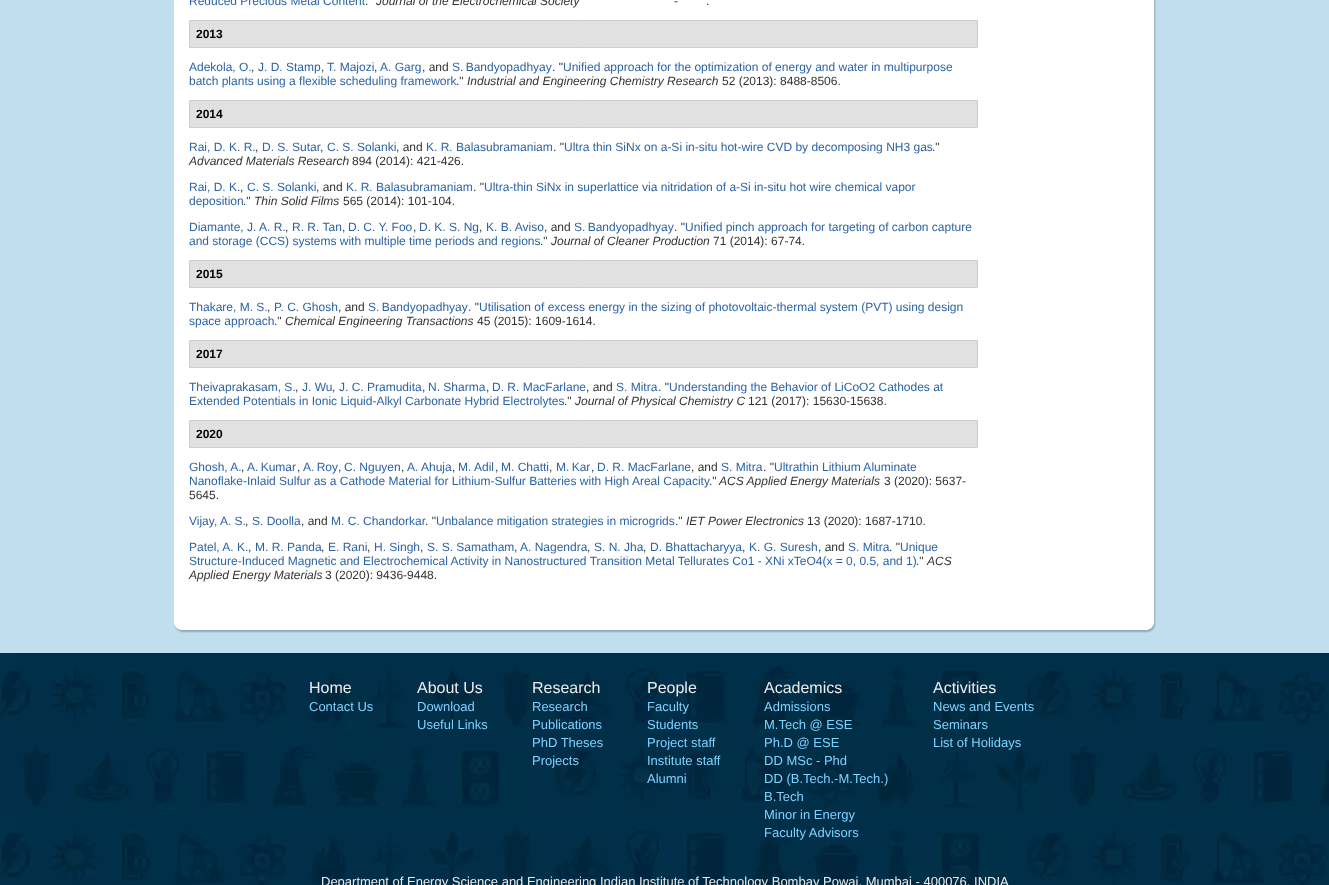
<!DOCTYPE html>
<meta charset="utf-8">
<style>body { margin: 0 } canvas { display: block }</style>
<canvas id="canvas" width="1329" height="885"></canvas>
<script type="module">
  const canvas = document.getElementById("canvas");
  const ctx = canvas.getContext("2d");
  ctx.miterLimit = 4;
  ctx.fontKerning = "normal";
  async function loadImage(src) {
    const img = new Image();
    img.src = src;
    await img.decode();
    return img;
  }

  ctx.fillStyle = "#ffffff";
  ctx.fillRect(0, 0, 1329, 885);
  ctx.fillStyle = "#c0deed";
  ctx.fillRect(0, 0, 1329, 653);
  ctx.drawImage(await loadImage("img1.png"), 174, 624, 982, 9);
  ctx.drawImage(await loadImage("img2.png"), 174, 0, 982, 624);
  ctx.font = "12px Liberation Sans";
  ctx.fillStyle = "#2c63a7";
  ctx.fillText("Reduced Precious Metal Content", 189, 5);
  ctx.font = "italic 12px Liberation Sans";
  ctx.fillStyle = "#333333";
  ctx.fillText("Journal of the Electrochemical Society", 376, 5);
  ctx.font = "12px Liberation Sans";
  ctx.fillText("-", 674, 5);
  ctx.fillText(".", 365, 5);
  ctx.fillText(".", 706, 5);
  ctx.fillStyle = "#e1e1e1";
  ctx.beginPath();
  ctx.rect(189.5, 20.5, 788, 27);
  ctx.fill();
  ctx.strokeStyle = "#cccccc";
  ctx.stroke();
  ctx.font = "bold 12px Liberation Sans";
  ctx.fillStyle = "#000000";
  ctx.fillText("2013", 196, 38);
  ctx.font = "12px Liberation Sans";
  ctx.fillStyle = "#2c63a7";
  ctx.fillText("Adekola, O.", 189, 71);
  ctx.fillStyle = "#333333";
  ctx.fillText(",", 251, 71);
  ctx.fillStyle = "#2c63a7";
  ctx.fillText("J. D. Stamp", 258, 71);
  ctx.fillStyle = "#333333";
  ctx.fillText(",", 321, 71);
  ctx.fillStyle = "#2c63a7";
  ctx.fillText("T. Majozi", 327, 71);
  ctx.fillStyle = "#333333";
  ctx.fillText(",", 374, 71);
  ctx.fillStyle = "#2c63a7";
  ctx.fillText("A. Garg", 380, 71);
  ctx.fillStyle = "#333333";
  ctx.fillText(", and", 422, 71);
  ctx.wordSpacing = "-1px";
  ctx.fillStyle = "#2c63a7";
  ctx.fillText("S. Bandyopadhyay", 452, 71);
  ctx.wordSpacing = "0px";
  ctx.fillStyle = "#333333";
  ctx.fillText(". \"", 552, 71);
  ctx.fillStyle = "#2c63a7";
  ctx.fillText("Unified approach for the optimization of energy and water in multipurpose", 563, 71);
  ctx.fillText("batch plants using a flexible scheduling framework", 189, 85);
  ctx.fillStyle = "#333333";
  ctx.fillText(".\"", 456, 85);
  ctx.font = "italic 12px Liberation Sans";
  ctx.fillText("Industrial and Engineering Chemistry Research", 467, 85);
  ctx.font = "12px Liberation Sans";
  ctx.fillText("52 (2013): 8488-8506.", 722, 85);
  ctx.fillStyle = "#e1e1e1";
  ctx.beginPath();
  ctx.rect(189.5, 100.5, 788, 27);
  ctx.fill();
  ctx.stroke();
  ctx.font = "bold 12px Liberation Sans";
  ctx.fillStyle = "#000000";
  ctx.fillText("2014", 196, 118);
  ctx.font = "12px Liberation Sans";
  ctx.fillStyle = "#2c63a7";
  ctx.fillText("Rai, D. K. R.", 189, 151);
  ctx.fillStyle = "#333333";
  ctx.fillText(",", 255, 151);
  ctx.fillStyle = "#2c63a7";
  ctx.fillText("D. S. Sutar", 262, 151);
  ctx.fillStyle = "#333333";
  ctx.fillText(",", 320, 151);
  ctx.fillStyle = "#2c63a7";
  ctx.fillText("C. S. Solanki", 327, 151);
  ctx.fillStyle = "#333333";
  ctx.fillText(", and", 396, 151);
  ctx.fillStyle = "#2c63a7";
  ctx.fillText("K. R. Balasubramaniam", 426, 151);
  ctx.fillStyle = "#333333";
  ctx.fillText(". \"", 553, 151);
  ctx.fillStyle = "#2c63a7";
  ctx.fillText("Ultra thin SiNx on a-Si in-situ hot-wire CVD by decomposing NH3 gas", 564, 151);
  ctx.fillStyle = "#333333";
  ctx.fillText(".\"", 932, 151);
  ctx.font = "italic 12px Liberation Sans";
  ctx.fillText("Advanced Materials Research", 189, 165);
  ctx.font = "12px Liberation Sans";
  ctx.fillText("894 (2014): 421-426.", 352, 165);
  ctx.fillStyle = "#2c63a7";
  ctx.fillText("Rai, D. K.", 189, 191);
  ctx.fillStyle = "#333333";
  ctx.fillText(",", 240, 191);
  ctx.fillStyle = "#2c63a7";
  ctx.fillText("C. S. Solanki", 247, 191);
  ctx.fillStyle = "#333333";
  ctx.fillText(", and", 316, 191);
  ctx.fillStyle = "#2c63a7";
  ctx.fillText("K. R. Balasubramaniam", 346, 191);
  ctx.fillStyle = "#333333";
  ctx.fillText(". \"", 473, 191);
  ctx.fillStyle = "#2c63a7";
  ctx.fillText("Ultra-thin SiNx in superlattice via nitridation of a-Si in-situ hot wire chemical vapor", 484, 191);
  ctx.fillText("deposition", 189, 205);
  ctx.fillStyle = "#333333";
  ctx.fillText(".\"", 243, 205);
  ctx.font = "italic 12px Liberation Sans";
  ctx.fillText("Thin Solid Films", 254, 205);
  ctx.font = "12px Liberation Sans";
  ctx.fillText("565 (2014): 101-104.", 343, 205);
  ctx.fillStyle = "#2c63a7";
  ctx.fillText("Diamante, J. A. R.", 189, 231);
  ctx.fillStyle = "#333333";
  ctx.fillText(",", 285, 231);
  ctx.fillStyle = "#2c63a7";
  ctx.fillText("R. R. Tan", 292, 231);
  ctx.fillStyle = "#333333";
  ctx.fillText(",", 342, 231);
  ctx.fillStyle = "#2c63a7";
  ctx.fillText("D. C. Y. Foo", 348, 231);
  ctx.fillStyle = "#333333";
  ctx.fillText(",", 413, 231);
  ctx.fillStyle = "#2c63a7";
  ctx.fillText("D. K. S. Ng", 419, 231);
  ctx.fillStyle = "#333333";
  ctx.fillText(",", 479, 231);
  ctx.fillStyle = "#2c63a7";
  ctx.fillText("K. B. Aviso", 486, 231);
  ctx.fillStyle = "#333333";
  ctx.fillText(", and", 544, 231);
  ctx.wordSpacing = "-1px";
  ctx.fillStyle = "#2c63a7";
  ctx.fillText("S. Bandyopadhyay", 574, 231);
  ctx.wordSpacing = "0px";
  ctx.fillStyle = "#333333";
  ctx.fillText(". \"", 674, 231);
  ctx.fillStyle = "#2c63a7";
  ctx.fillText("Unified pinch approach for targeting of carbon capture", 685, 231);
  ctx.fillText("and storage (CCS) systems with multiple time periods and regions", 189, 245);
  ctx.fillStyle = "#333333";
  ctx.fillText(".\"", 540, 245);
  ctx.font = "italic 12px Liberation Sans";
  ctx.fillText("Journal of Cleaner Production", 551, 245);
  ctx.font = "12px Liberation Sans";
  ctx.fillText("71 (2014): 67-74.", 713, 245);
  ctx.fillStyle = "#e1e1e1";
  ctx.beginPath();
  ctx.rect(189.5, 260.5, 788, 27);
  ctx.fill();
  ctx.stroke();
  ctx.font = "bold 12px Liberation Sans";
  ctx.fillStyle = "#000000";
  ctx.fillText("2015", 196, 278);
  ctx.font = "12px Liberation Sans";
  ctx.fillStyle = "#2c63a7";
  ctx.fillText("Thakare, M. S.", 189, 311);
  ctx.fillStyle = "#333333";
  ctx.fillText(",", 267, 311);
  ctx.fillStyle = "#2c63a7";
  ctx.fillText("P. C. Ghosh", 274, 311);
  ctx.fillStyle = "#333333";
  ctx.fillText(", and", 338, 311);
  ctx.wordSpacing = "-1px";
  ctx.fillStyle = "#2c63a7";
  ctx.fillText("S. Bandyopadhyay", 368, 311);
  ctx.wordSpacing = "0px";
  ctx.fillStyle = "#333333";
  ctx.fillText(". \"", 468, 311);
  ctx.fillStyle = "#2c63a7";
  ctx.fillText("Utilisation of excess energy in the sizing of photovoltaic-thermal system (PVT) using design", 479, 311);
  ctx.fillText("space approach", 189, 325);
  ctx.fillStyle = "#333333";
  ctx.fillText(".\"", 274, 325);
  ctx.font = "italic 12px Liberation Sans";
  ctx.fillText("Chemical Engineering Transactions", 285, 325);
  ctx.font = "12px Liberation Sans";
  ctx.fillText("45 (2015): 1609-1614.", 477, 325);
  ctx.fillStyle = "#e1e1e1";
  ctx.beginPath();
  ctx.rect(189.5, 340.5, 788, 27);
  ctx.fill();
  ctx.stroke();
  ctx.font = "bold 12px Liberation Sans";
  ctx.fillStyle = "#000000";
  ctx.fillText("2017", 196, 358);
  ctx.font = "12px Liberation Sans";
  ctx.fillStyle = "#2c63a7";
  ctx.fillText("Theivaprakasam, S.", 189, 391);
  ctx.fillStyle = "#333333";
  ctx.fillText(",", 295, 391);
  ctx.fillStyle = "#2c63a7";
  ctx.fillText("J. Wu", 302, 391);
  ctx.fillStyle = "#333333";
  ctx.fillText(",", 332, 391);
  ctx.fillStyle = "#2c63a7";
  ctx.fillText("J. C. Pramudita", 339, 391);
  ctx.fillStyle = "#333333";
  ctx.fillText(",", 422, 391);
  ctx.fillStyle = "#2c63a7";
  ctx.fillText("N. Sharma", 428, 391);
  ctx.fillStyle = "#333333";
  ctx.fillText(",", 486, 391);
  ctx.fillStyle = "#2c63a7";
  ctx.fillText("D. R. MacFarlane", 492, 391);
  ctx.fillStyle = "#333333";
  ctx.fillText(", and", 586, 391);
  ctx.fillStyle = "#2c63a7";
  ctx.fillText("S. Mitra", 616, 391);
  ctx.fillStyle = "#333333";
  ctx.fillText(". \"", 658, 391);
  ctx.fillStyle = "#2c63a7";
  ctx.fillText("Understanding the Behavior of LiCoO2 Cathodes at", 669, 391);
  ctx.fillText("Extended Potentials in Ionic Liquid-Alkyl Carbonate Hybrid Electrolytes", 189, 405);
  ctx.fillStyle = "#333333";
  ctx.fillText(".\"", 564, 405);
  ctx.font = "italic 12px Liberation Sans";
  ctx.fillText("Journal of Physical Chemistry C", 575, 405);
  ctx.font = "12px Liberation Sans";
  ctx.fillText("121 (2017): 15630-15638.", 748, 405);
  ctx.fillStyle = "#e1e1e1";
  ctx.beginPath();
  ctx.rect(189.5, 420.5, 788, 27);
  ctx.fill();
  ctx.stroke();
  ctx.font = "bold 12px Liberation Sans";
  ctx.fillStyle = "#000000";
  ctx.fillText("2020", 196, 438);
  ctx.font = "12px Liberation Sans";
  ctx.fillStyle = "#2c63a7";
  ctx.fillText("Ghosh, A.", 189, 471);
  ctx.fillStyle = "#333333";
  ctx.fillText(",", 241, 471);
  ctx.wordSpacing = "-1px";
  ctx.fillStyle = "#2c63a7";
  ctx.fillText("A. Kumar", 247, 471);
  ctx.wordSpacing = "0px";
  ctx.fillStyle = "#333333";
  ctx.fillText(",", 297, 471);
  ctx.wordSpacing = "-1px";
  ctx.fillStyle = "#2c63a7";
  ctx.fillText("A. Roy", 303, 471);
  ctx.wordSpacing = "0px";
  ctx.fillStyle = "#333333";
  ctx.fillText(",", 338, 471);
  ctx.fillStyle = "#2c63a7";
  ctx.fillText("C. Nguyen", 344, 471);
  ctx.fillStyle = "#333333";
  ctx.fillText(",", 401, 471);
  ctx.fillStyle = "#2c63a7";
  ctx.fillText("A. Ahuja", 407, 471);
  ctx.fillStyle = "#333333";
  ctx.fillText(",", 452, 471);
  ctx.fillStyle = "#2c63a7";
  ctx.fillText("M. Adil", 458, 471);
  ctx.fillStyle = "#333333";
  ctx.fillText(",", 495, 471);
  ctx.fillStyle = "#2c63a7";
  ctx.fillText("M. Chatti", 501, 471);
  ctx.fillStyle = "#333333";
  ctx.fillText(",", 549, 471);
  ctx.wordSpacing = "-1px";
  ctx.fillStyle = "#2c63a7";
  ctx.fillText("M. Kar", 556, 471);
  ctx.wordSpacing = "0px";
  ctx.fillStyle = "#333333";
  ctx.fillText(",", 591, 471);
  ctx.fillStyle = "#2c63a7";
  ctx.fillText("D. R. MacFarlane", 597, 471);
  ctx.fillStyle = "#333333";
  ctx.fillText(", and", 691, 471);
  ctx.fillStyle = "#2c63a7";
  ctx.fillText("S. Mitra", 721, 471);
  ctx.fillStyle = "#333333";
  ctx.fillText(". \"", 763, 471);
  ctx.fillStyle = "#2c63a7";
  ctx.fillText("Ultrathin Lithium Aluminate", 774, 471);
  ctx.fillText("Nanoflake-Inlaid Sulfur as a Cathode Material for Lithium-Sulfur Batteries with High Areal Capacity", 189, 485);
  ctx.fillStyle = "#333333";
  ctx.fillText(".\"", 709, 485);
  ctx.font = "italic 12px Liberation Sans";
  ctx.fillText("ACS Applied Energy Materials", 719, 485);
  ctx.font = "12px Liberation Sans";
  ctx.fillText("3 (2020): 5637-", 884, 485);
  ctx.fillText("5645.", 189, 499);
  ctx.fillStyle = "#2c63a7";
  ctx.fillText("Vijay, A. S.", 189, 525);
  ctx.fillStyle = "#333333";
  ctx.fillText(",", 245, 525);
  ctx.fillStyle = "#2c63a7";
  ctx.fillText("S. Doolla", 252, 525);
  ctx.fillStyle = "#333333";
  ctx.fillText(", and", 301, 525);
  ctx.fillStyle = "#2c63a7";
  ctx.fillText("M. C. Chandorkar", 331, 525);
  ctx.fillStyle = "#333333";
  ctx.fillText(". \"", 425, 525);
  ctx.fillStyle = "#2c63a7";
  ctx.fillText("Unbalance mitigation strategies in microgrids", 436, 525);
  ctx.fillStyle = "#333333";
  ctx.fillText(".\"", 675, 525);
  ctx.font = "italic 12px Liberation Sans";
  ctx.fillText("IET Power Electronics", 686, 525);
  ctx.font = "12px Liberation Sans";
  ctx.fillText("13 (2020): 1687-1710.", 807, 525);
  ctx.fillStyle = "#2c63a7";
  ctx.fillText("Patel, A. K.", 189, 551);
  ctx.fillStyle = "#333333";
  ctx.fillText(",", 248, 551);
  ctx.fillStyle = "#2c63a7";
  ctx.fillText("M. R. Panda", 255, 551);
  ctx.fillStyle = "#333333";
  ctx.fillText(",", 321, 551);
  ctx.fillStyle = "#2c63a7";
  ctx.fillText("E. Rani", 328, 551);
  ctx.fillStyle = "#333333";
  ctx.fillText(",", 367, 551);
  ctx.fillStyle = "#2c63a7";
  ctx.fillText("H. Singh", 374, 551);
  ctx.fillStyle = "#333333";
  ctx.fillText(",", 420, 551);
  ctx.fillStyle = "#2c63a7";
  ctx.fillText("S. S. Samatham", 427, 551);
  ctx.fillStyle = "#333333";
  ctx.fillText(",", 514, 551);
  ctx.fillStyle = "#2c63a7";
  ctx.fillText("A. Nagendra", 520, 551);
  ctx.fillStyle = "#333333";
  ctx.fillText(",", 587, 551);
  ctx.fillStyle = "#2c63a7";
  ctx.fillText("S. N. Jha", 594, 551);
  ctx.fillStyle = "#333333";
  ctx.fillText(",", 643, 551);
  ctx.fillStyle = "#2c63a7";
  ctx.fillText("D. Bhattacharyya", 650, 551);
  ctx.fillStyle = "#333333";
  ctx.fillText(",", 742, 551);
  ctx.fillStyle = "#2c63a7";
  ctx.fillText("K. G. Suresh", 749, 551);
  ctx.fillStyle = "#333333";
  ctx.fillText(", and", 818, 551);
  ctx.fillStyle = "#2c63a7";
  ctx.fillText("S. Mitra", 848, 551);
  ctx.fillStyle = "#333333";
  ctx.fillText(". \"", 889, 551);
  ctx.fillStyle = "#2c63a7";
  ctx.fillText("Unique", 900, 551);
  ctx.fillText("Structure-Induced Magnetic and Electrochemical Activity in Nanostructured Transition Metal Tellurates Co1 - XNi xTeO4(x = 0, 0.5, and 1)", 189, 565);
  ctx.fillStyle = "#333333";
  ctx.fillText(".\"", 916, 565);
  ctx.font = "italic 12px Liberation Sans";
  ctx.fillText("ACS", 927, 565);
  ctx.fillText("Applied Energy Materials", 189, 579);
  ctx.font = "12px Liberation Sans";
  ctx.fillText("3 (2020): 9436-9448.", 325, 579);
  ctx.drawImage(await loadImage("img3.png"), 0, 653, 1329, 232);
  ctx.font = "16px Liberation Sans";
  ctx.fillStyle = "#ececec";
  ctx.fillText("Home", 309, 693);
  ctx.font = "13px Liberation Sans";
  ctx.fillStyle = "#7dd2ff";
  ctx.fillText("Contact Us", 309, 711);
  ctx.font = "16px Liberation Sans";
  ctx.fillStyle = "#ececec";
  ctx.fillText("About Us", 417, 693);
  ctx.font = "13px Liberation Sans";
  ctx.fillStyle = "#7dd2ff";
  ctx.fillText("Download", 417, 711);
  ctx.fillText("Useful Links", 417, 729);
  ctx.font = "16px Liberation Sans";
  ctx.fillStyle = "#ececec";
  ctx.fillText("Research", 532, 693);
  ctx.font = "13px Liberation Sans";
  ctx.fillStyle = "#7dd2ff";
  ctx.fillText("Research", 532, 711);
  ctx.fillText("Publications", 532, 729);
  ctx.fillText("PhD Theses", 532, 747);
  ctx.fillText("Projects", 532, 765);
  ctx.font = "16px Liberation Sans";
  ctx.fillStyle = "#ececec";
  ctx.fillText("People", 647, 693);
  ctx.font = "13px Liberation Sans";
  ctx.fillStyle = "#7dd2ff";
  ctx.fillText("Faculty", 647, 711);
  ctx.fillText("Students", 647, 729);
  ctx.fillText("Project staff", 647, 747);
  ctx.fillText("Institute staff", 647, 765);
  ctx.fillText("Alumni", 647, 783);
  ctx.font = "16px Liberation Sans";
  ctx.fillStyle = "#ececec";
  ctx.fillText("Academics", 764, 693);
  ctx.font = "13px Liberation Sans";
  ctx.fillStyle = "#7dd2ff";
  ctx.fillText("Admissions", 764, 711);
  ctx.fillText("M.Tech @ ESE", 764, 729);
  ctx.fillText("Ph.D @ ESE", 764, 747);
  ctx.fillText("DD MSc - Phd", 764, 765);
  ctx.fillText("DD (B.Tech.-M.Tech.)", 764, 783);
  ctx.fillText("B.Tech", 764, 801);
  ctx.fillText("Minor in Energy", 764, 819);
  ctx.fillText("Faculty Advisors", 764, 837);
  ctx.font = "16px Liberation Sans";
  ctx.fillStyle = "#ececec";
  ctx.fillText("Activities", 933, 693);
  ctx.font = "13px Liberation Sans";
  ctx.fillStyle = "#7dd2ff";
  ctx.fillText("News and Events", 933, 711);
  ctx.fillText("Seminars", 933, 729);
  ctx.fillText("List of Holidays", 933, 747);
  ctx.fillStyle = "#ececec";
  ctx.fillText("Department of Energy Science and Engineering Indian Institute of Technology Bombay Powai, Mumbai - 400076, INDIA", 321, 886);
</script>
